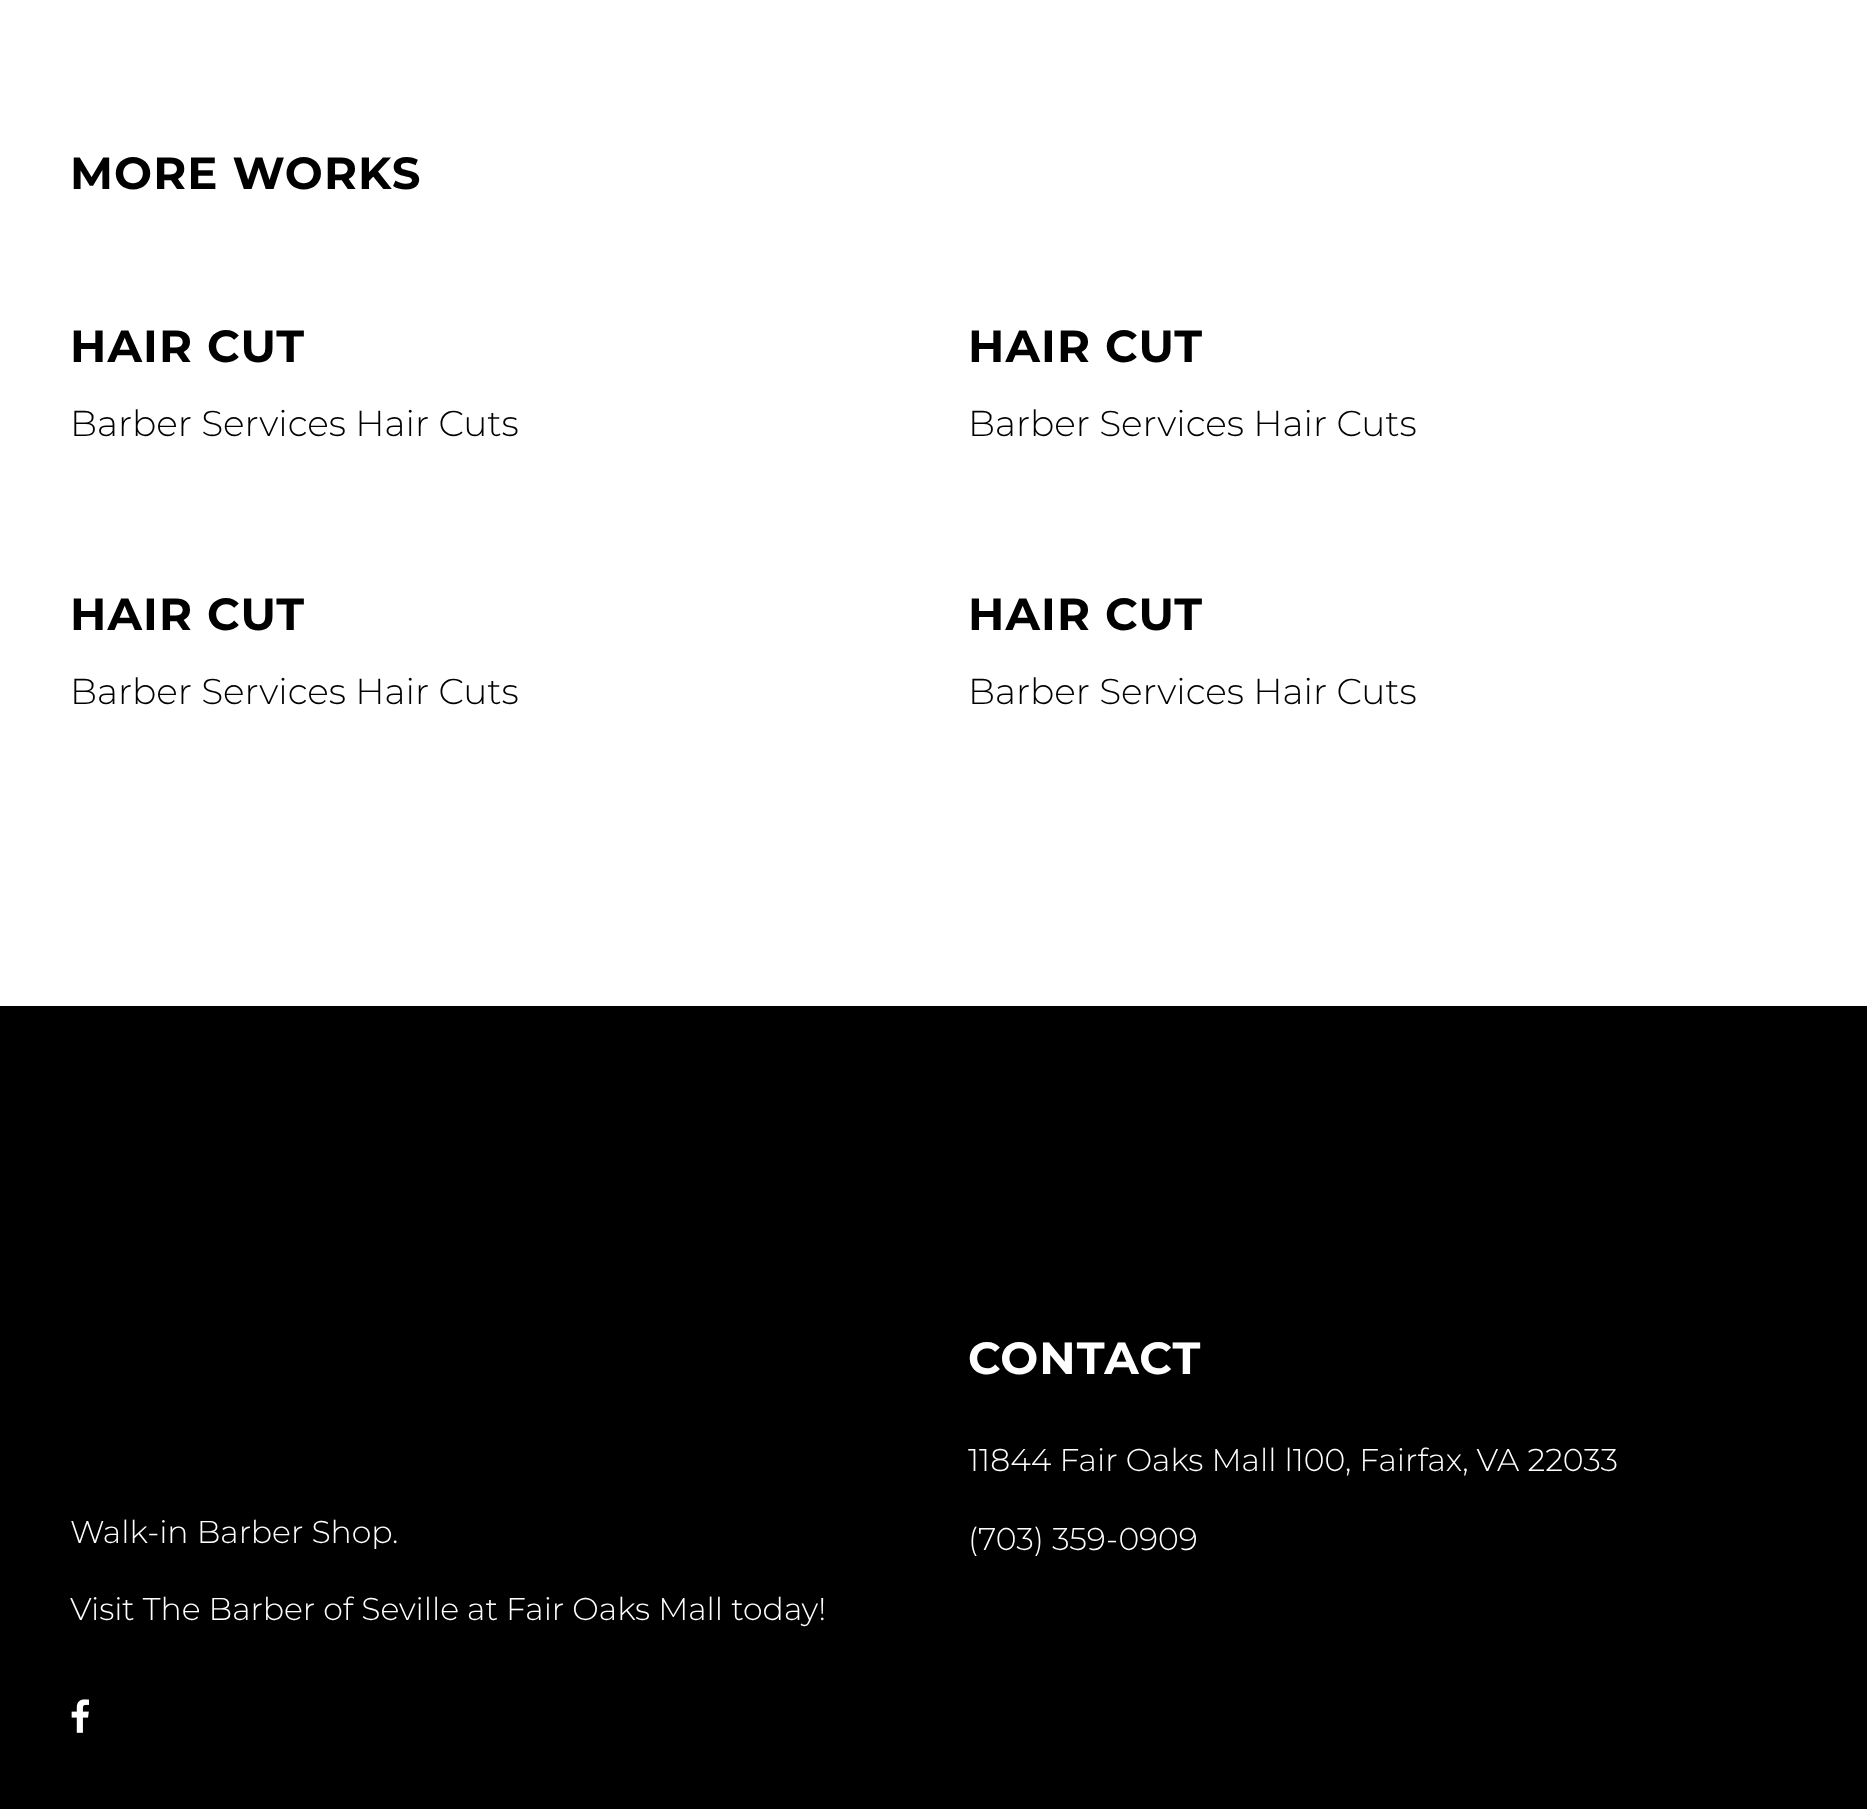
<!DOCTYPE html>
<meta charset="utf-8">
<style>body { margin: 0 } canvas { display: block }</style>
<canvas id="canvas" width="1867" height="1809"></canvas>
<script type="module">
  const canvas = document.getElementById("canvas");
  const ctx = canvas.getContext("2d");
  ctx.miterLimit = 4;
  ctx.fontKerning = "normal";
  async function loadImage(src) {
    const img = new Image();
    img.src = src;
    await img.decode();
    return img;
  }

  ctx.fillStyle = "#ffffff";
  ctx.fillRect(0, 0, 1867, 1809);
  ctx.letterSpacing = "1.1px";
  ctx.font = "bold 45px Montserrat";
  ctx.fillStyle = "#000000";
  ctx.fillText("MORE WORKS", 70, 189);
  ctx.fillText("HAIR CUT", 70, 362);
  ctx.letterSpacing = "0px";
  ctx.font = "300 36px Montserrat";
  ctx.fillText("Barber Services Hair Cuts", 70, 436);
  ctx.letterSpacing = "1.1px";
  ctx.font = "bold 45px Montserrat";
  ctx.fillText("HAIR CUT", 968, 362);
  ctx.letterSpacing = "0px";
  ctx.font = "300 36px Montserrat";
  ctx.fillText("Barber Services Hair Cuts", 968, 436);
  ctx.letterSpacing = "1.1px";
  ctx.font = "bold 45px Montserrat";
  ctx.fillText("HAIR CUT", 70, 630);
  ctx.letterSpacing = "0px";
  ctx.font = "300 36px Montserrat";
  ctx.fillText("Barber Services Hair Cuts", 70, 704);
  ctx.letterSpacing = "1.1px";
  ctx.font = "bold 45px Montserrat";
  ctx.fillText("HAIR CUT", 968, 630);
  ctx.letterSpacing = "0px";
  ctx.font = "300 36px Montserrat";
  ctx.fillText("Barber Services Hair Cuts", 968, 704);
  ctx.fillRect(0, 1006, 1867, 803);
  ctx.letterSpacing = "1.1px";
  ctx.font = "bold 45px Montserrat";
  ctx.fillStyle = "#ffffff";
  ctx.fillText("CONTACT", 968, 1374);
  ctx.letterSpacing = "0px";
  ctx.font = "300 31.5px Montserrat";
  ctx.fillText("11844 Fair Oaks Mall l100, Fairfax, VA 22033", 968, 1471);
  ctx.fillText("(703) 359-0909", 968, 1550);
  ctx.fillText("Walk-in Barber Shop.", 70, 1543);
  ctx.fillText("Visit The Barber of Seville at Fair Oaks Mall today!", 70, 1620);
  ctx.drawImage(await loadImage("img1.png"), 71, 1699, 18, 34);
</script>
